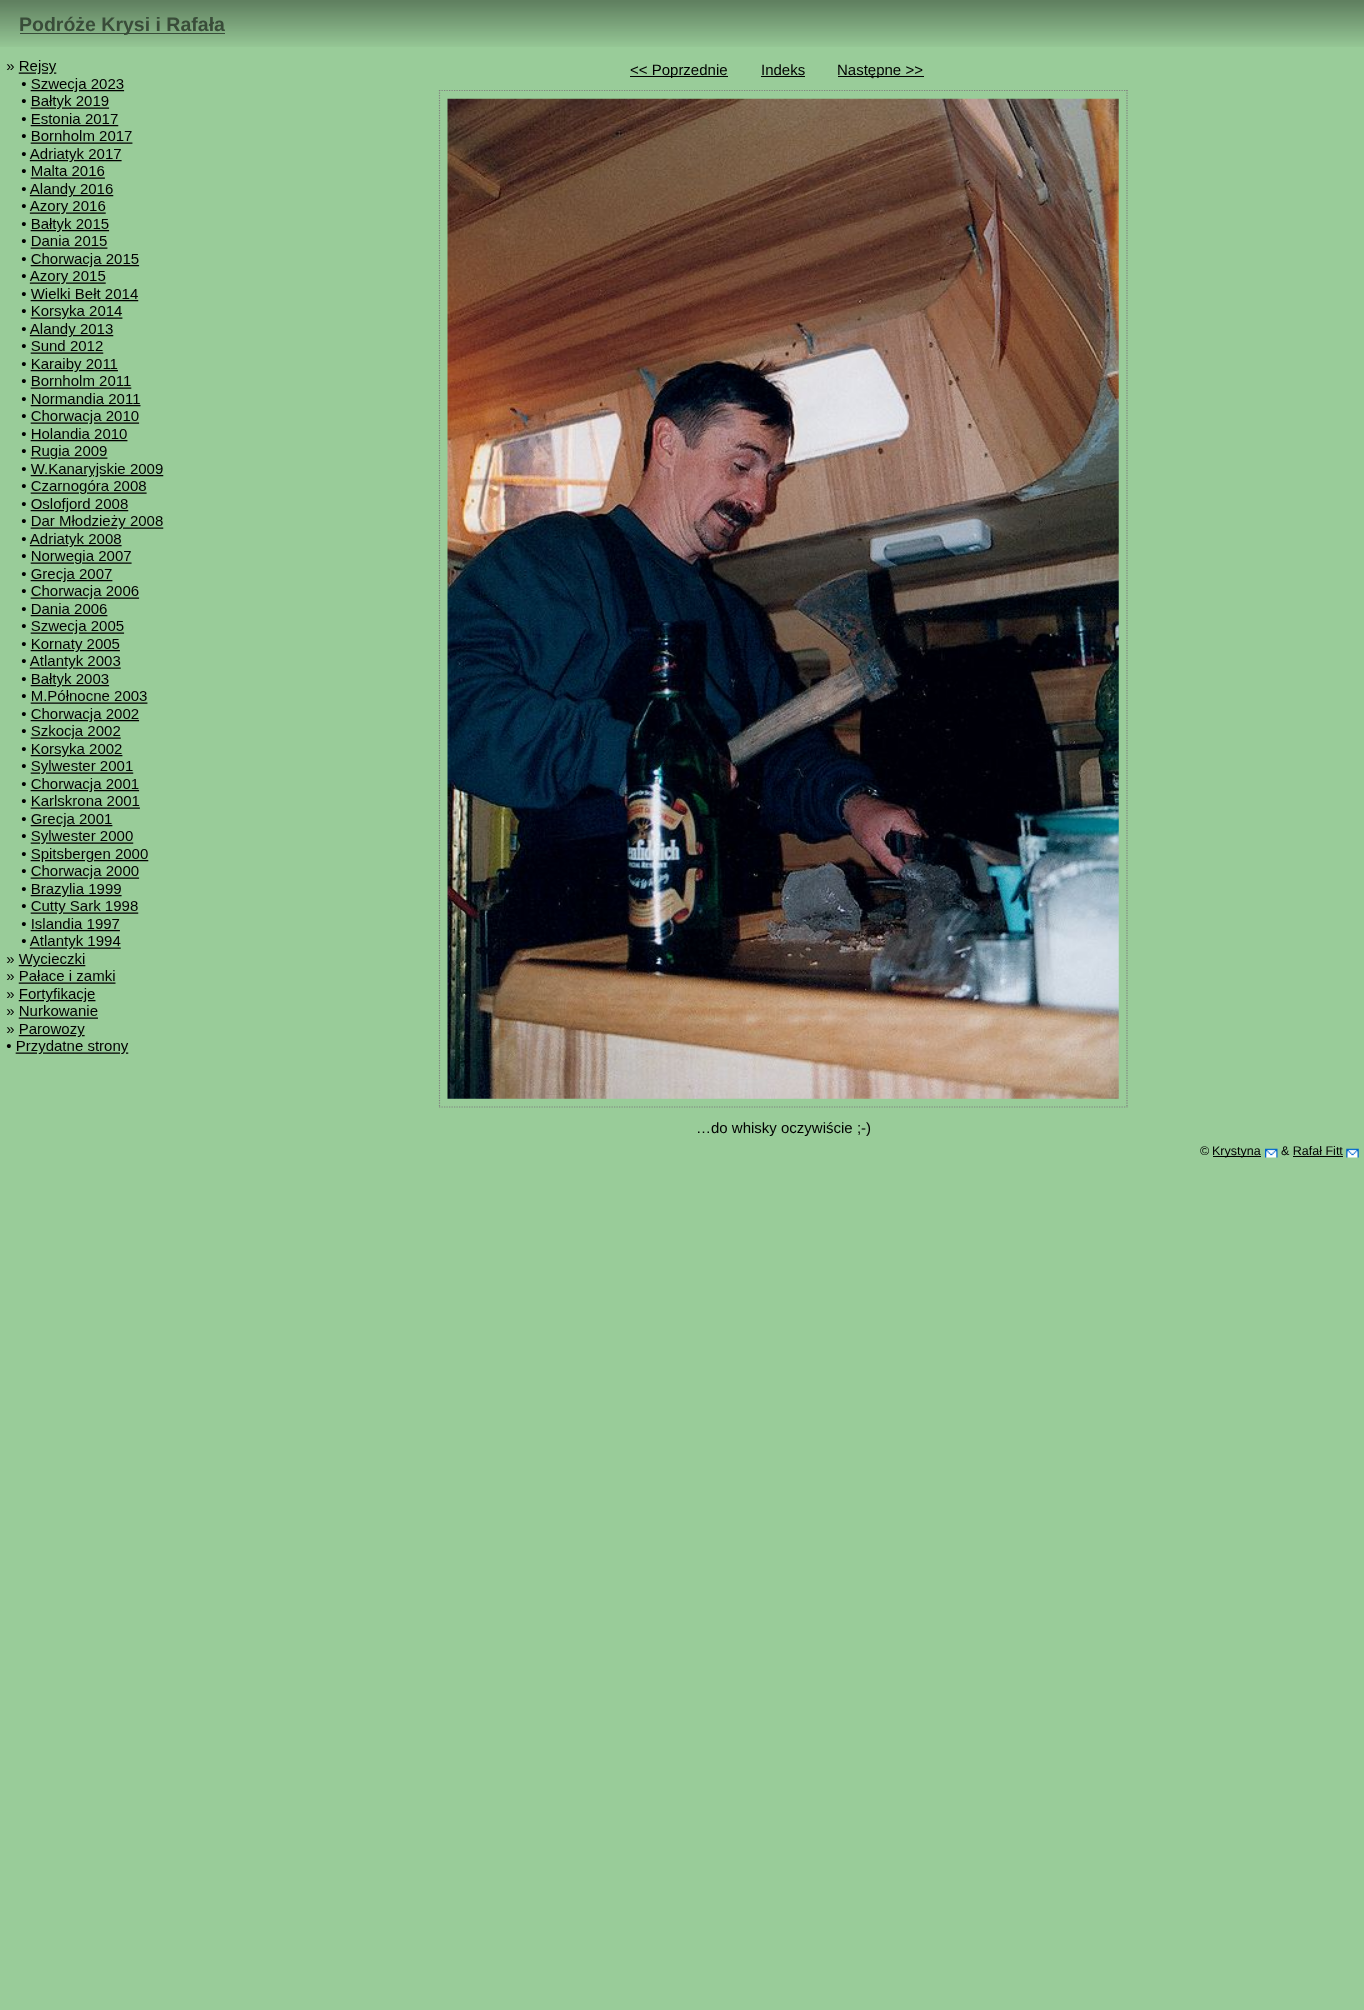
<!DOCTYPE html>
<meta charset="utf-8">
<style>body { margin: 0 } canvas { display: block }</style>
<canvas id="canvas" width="1364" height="2010"></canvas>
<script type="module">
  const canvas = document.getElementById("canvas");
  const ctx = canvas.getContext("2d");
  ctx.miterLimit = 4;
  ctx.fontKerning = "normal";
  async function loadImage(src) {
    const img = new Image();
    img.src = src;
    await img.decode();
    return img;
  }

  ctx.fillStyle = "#99cc99";
  ctx.fillRect(0, 0, 1364, 2010);
  ctx.drawImage(await loadImage("img1.png"), 0, 0, 1364, 47);
  ctx.fillStyle = "#394c39";
  ctx.fillRect(20, 33, 205, 1);
  ctx.font = "bold 19.5px Liberation Sans";
  ctx.fillText("Podróże Krysi i Rafała", 19, 31);
  ctx.drawImage(await loadImage("img2.png"), 6, 60, 158, 994);
  ctx.fillStyle = "#000000";
  ctx.fillRect(630, 76, 98, 1);
  ctx.font = "15px Liberation Sans";
  ctx.fillText("<< Poprzednie", 630, 75);
  ctx.fillText("Indeks", 761, 75);
  ctx.fillRect(761, 76, 44, 1);
  ctx.fillRect(838, 76, 86, 1);
  ctx.fillText("Następne >>", 837, 75);
  ctx.beginPath();
  ctx.moveTo(439, 90.5);
  ctx.lineTo(1127.5, 90.5);
  ctx.strokeStyle = "#808080";
  ctx.lineWidth = 1.2;
  ctx.setLineDash([1.25, 1.25]);
  ctx.stroke();
  ctx.beginPath();
  ctx.moveTo(1127, 90);
  ctx.lineTo(1127, 1107.5);
  ctx.stroke();
  ctx.beginPath();
  ctx.moveTo(439, 1107);
  ctx.lineTo(1127.5, 1107);
  ctx.stroke();
  ctx.beginPath();
  ctx.moveTo(439.5, 90);
  ctx.lineTo(439.5, 1107.5);
  ctx.stroke();
  ctx.drawImage(await loadImage("img3.png"), 447, 98, 672, 1001);
  ctx.fillText("…do whisky oczywiście ;-)", 696, 1133);
  ctx.font = "12.5px Liberation Sans";
  ctx.fillText("©", 1200, 1155);
  ctx.fillRect(1213, 1156, 48, 1);
  ctx.fillText("Krystyna", 1212, 1155);
  ctx.drawImage(await loadImage("img4.png"), 1265, 1148, 13, 10);
  ctx.fillText("& Rafał Fitt", 1281, 1155);
  ctx.drawImage(await loadImage("img5.png"), 1346, 1148, 13, 10);
  ctx.fillRect(1293, 1156, 50, 1);
</script>
